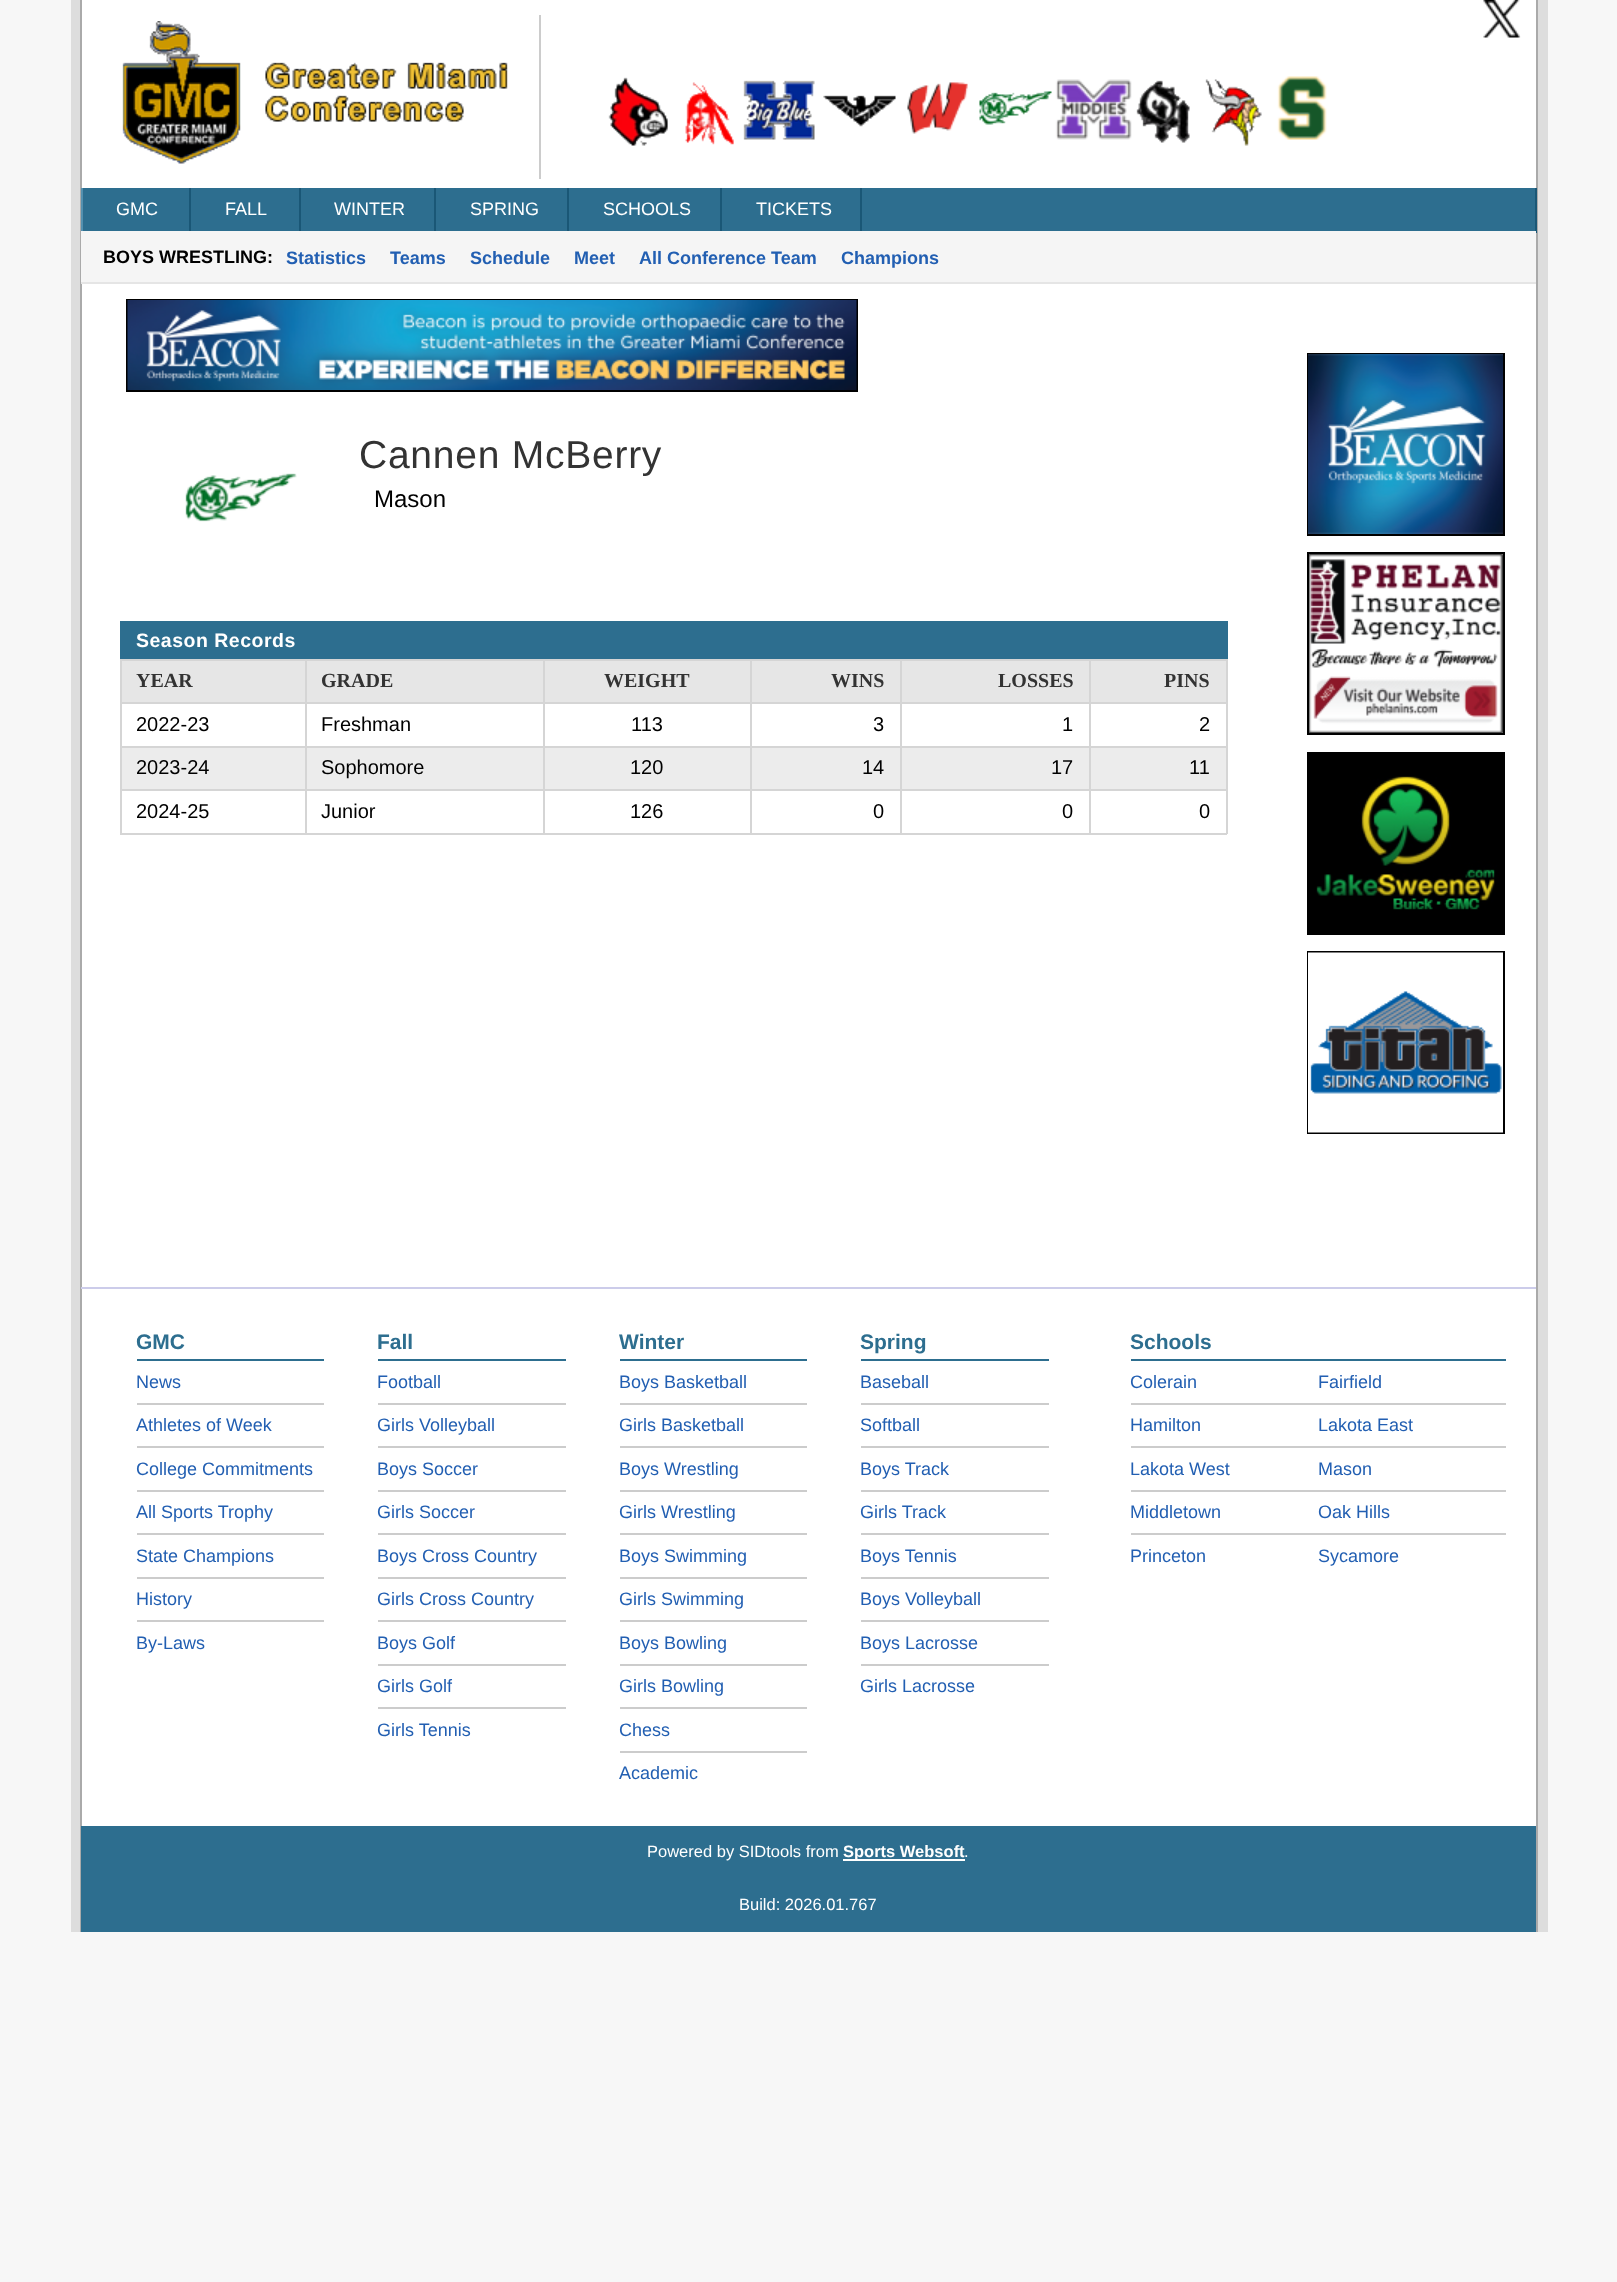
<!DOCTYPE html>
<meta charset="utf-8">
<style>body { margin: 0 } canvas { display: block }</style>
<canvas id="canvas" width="1617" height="2282"></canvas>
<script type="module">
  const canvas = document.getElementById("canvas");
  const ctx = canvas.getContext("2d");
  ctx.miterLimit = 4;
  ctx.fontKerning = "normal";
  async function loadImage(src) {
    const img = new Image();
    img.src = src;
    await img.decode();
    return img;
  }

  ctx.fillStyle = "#f7f7f7";
  ctx.fillRect(0, 0, 1617, 2282);
  ctx.fillStyle = "#dddddd";
  ctx.fillRect(71, 0, 1477, 1932);
  ctx.fillStyle = "#ffffff";
  ctx.fillRect(82, 0, 1454, 1826);
  ctx.fillStyle = "#aaaaaa";
  ctx.fillRect(1536, 0, 2, 1932);
  ctx.fillRect(80, 0, 2, 1932);
  ctx.drawImage(await loadImage("img1.png"), 122, 21, 386, 143);
  ctx.fillStyle = "#cccccc";
  ctx.fillRect(539, 15, 2, 164);
  ctx.drawImage(await loadImage("img2.png"), 608, 76, 719, 70);
  ctx.drawImage(await loadImage("img3.png"), 1483, 0, 38, 38);
  ctx.fillStyle = "#2d6e8f";
  ctx.fillRect(83, 188, 1452, 43);
  ctx.fillStyle = "#1a5776";
  ctx.fillRect(189, 188, 2, 45);
  ctx.fillStyle = "#5490af";
  ctx.fillRect(81, 188, 2, 45);
  ctx.font = "18px Liberation Sans";
  ctx.fillStyle = "#ffffff";
  ctx.fillText("GMC", 116, 215);
  ctx.fillStyle = "#1a5776";
  ctx.fillRect(299, 188, 2, 45);
  ctx.fillStyle = "#ffffff";
  ctx.fillText("FALL", 225, 215);
  ctx.fillStyle = "#1a5776";
  ctx.fillRect(434, 188, 2, 45);
  ctx.fillStyle = "#ffffff";
  ctx.fillText("WINTER", 334, 215);
  ctx.fillStyle = "#1a5776";
  ctx.fillRect(567, 188, 2, 45);
  ctx.fillStyle = "#ffffff";
  ctx.fillText("SPRING", 470, 215);
  ctx.fillStyle = "#1a5776";
  ctx.fillRect(720, 188, 2, 45);
  ctx.fillStyle = "#ffffff";
  ctx.fillText("SCHOOLS", 603, 215);
  ctx.fillStyle = "#1a5776";
  ctx.fillRect(860, 188, 2, 45);
  ctx.fillStyle = "#ffffff";
  ctx.fillText("TICKETS", 756, 215);
  ctx.fillStyle = "#1a5776";
  ctx.fillRect(1535, 188, 2, 45);
  ctx.fillStyle = "#f5f5f5";
  ctx.fillRect(81, 231, 1455, 51);
  ctx.fillStyle = "#e5e5e5";
  ctx.fillRect(81, 282, 1455, 2);
  ctx.font = "bold 18px Liberation Sans";
  ctx.fillStyle = "#000000";
  ctx.fillText("BOYS WRESTLING:", 103, 263);
  ctx.fillStyle = "#225fb2";
  ctx.fillText("Statistics", 286, 264);
  ctx.fillText("Teams", 390, 264);
  ctx.fillText("Schedule", 470, 264);
  ctx.fillText("Meet", 574, 264);
  ctx.fillText("All Conference Team", 639, 264);
  ctx.fillText("Champions", 841, 264);
  ctx.strokeStyle = "#000000";
  ctx.lineWidth = 2;
  ctx.strokeRect(127, 300, 730, 91);
  ctx.drawImage(await loadImage("img4.png"), 127, 300, 730, 90);
  ctx.strokeRect(1308, 354, 196, 181);
  ctx.drawImage(await loadImage("img5.png"), 1308, 354, 195, 180);
  ctx.strokeRect(1308, 553, 196, 181);
  ctx.drawImage(await loadImage("img6.png"), 1309, 554, 194, 179);
  ctx.strokeRect(1308, 753, 196, 181);
  ctx.drawImage(await loadImage("img7.png"), 1309, 754, 194, 179);
  ctx.strokeRect(1308, 952, 196, 181);
  ctx.drawImage(await loadImage("img8.png"), 1308, 952, 195, 181);
  ctx.letterSpacing = "0.75px";
  ctx.font = "39px Liberation Sans";
  ctx.fillStyle = "#333333";
  ctx.fillText("Cannen McBerry", 359, 468);
  ctx.drawImage(await loadImage("img9.png"), 185, 473, 112, 49);
  ctx.letterSpacing = "0px";
  ctx.font = "24px Liberation Sans";
  ctx.fillStyle = "#000000";
  ctx.fillText("Mason", 374, 507);
  ctx.fillStyle = "#d5d5d5";
  ctx.fillRect(120, 833, 1107, 2);
  ctx.fillStyle = "#2d6e8f";
  ctx.fillRect(120, 621, 1106, 38);
  ctx.fillRect(1226, 621, 2, 39);
  ctx.letterSpacing = "0.5px";
  ctx.font = "bold 19.5px Liberation Sans";
  ctx.fillStyle = "#ffffff";
  ctx.fillText("Season Records", 136, 647);
  ctx.fillStyle = "#e6e6e6";
  ctx.fillRect(122, 661, 183, 41);
  ctx.fillStyle = "#d5d5d5";
  ctx.fillRect(1089, 659, 138, 2);
  ctx.fillRect(1089, 702, 138, 2);
  ctx.fillRect(1089, 746, 138, 2);
  ctx.fillStyle = "#ececec";
  ctx.fillRect(122, 748, 1104, 41);
  ctx.fillStyle = "#d5d5d5";
  ctx.fillRect(1089, 789, 138, 2);
  ctx.fillRect(1089, 789, 2, 45);
  ctx.fillRect(900, 789, 191, 2);
  ctx.fillRect(1089, 746, 2, 45);
  ctx.fillRect(900, 746, 191, 2);
  ctx.fillRect(1089, 702, 2, 45);
  ctx.fillRect(900, 702, 191, 2);
  ctx.fillRect(1089, 659, 2, 45);
  ctx.fillRect(900, 659, 191, 2);
  ctx.fillRect(900, 789, 2, 45);
  ctx.fillRect(750, 789, 152, 2);
  ctx.fillRect(900, 746, 2, 45);
  ctx.fillRect(750, 746, 152, 2);
  ctx.fillRect(900, 702, 2, 45);
  ctx.fillRect(750, 702, 152, 2);
  ctx.fillRect(900, 659, 2, 45);
  ctx.fillRect(750, 659, 152, 2);
  ctx.fillRect(750, 789, 2, 45);
  ctx.fillRect(543, 789, 209, 2);
  ctx.fillRect(750, 746, 2, 45);
  ctx.fillRect(543, 746, 209, 2);
  ctx.fillRect(750, 702, 2, 45);
  ctx.fillRect(543, 702, 209, 2);
  ctx.fillRect(750, 659, 2, 45);
  ctx.fillRect(543, 659, 209, 2);
  ctx.fillRect(543, 789, 2, 45);
  ctx.fillRect(305, 789, 240, 2);
  ctx.fillRect(543, 746, 2, 45);
  ctx.fillRect(305, 746, 240, 2);
  ctx.fillRect(543, 702, 2, 45);
  ctx.fillRect(305, 702, 240, 2);
  ctx.fillRect(543, 659, 2, 45);
  ctx.fillRect(305, 659, 240, 2);
  ctx.fillRect(305, 789, 2, 45);
  ctx.fillRect(120, 789, 186, 2);
  ctx.fillRect(305, 746, 2, 45);
  ctx.fillRect(120, 746, 186, 2);
  ctx.fillRect(305, 702, 2, 45);
  ctx.fillRect(120, 702, 186, 2);
  ctx.fillRect(305, 659, 2, 45);
  ctx.fillRect(120, 659, 186, 2);
  ctx.fillRect(120, 789, 2, 45);
  ctx.fillRect(120, 746, 2, 45);
  ctx.fillRect(120, 702, 2, 45);
  ctx.fillRect(120, 659, 2, 45);
  ctx.letterSpacing = "0px";
  ctx.font = "bold 20px Liberation Serif";
  ctx.fillStyle = "#333333";
  ctx.fillText("YEAR", 136, 687);
  ctx.fillStyle = "#e6e6e6";
  ctx.fillRect(307, 661, 236, 41);
  ctx.fillStyle = "#333333";
  ctx.fillText("GRADE", 321, 687);
  ctx.fillStyle = "#e6e6e6";
  ctx.fillRect(545, 661, 205, 41);
  ctx.fillStyle = "#333333";
  ctx.fillText("WEIGHT", 604, 687);
  ctx.fillStyle = "#e6e6e6";
  ctx.fillRect(752, 661, 148, 41);
  ctx.fillStyle = "#333333";
  ctx.fillText("WINS", 831, 687);
  ctx.fillStyle = "#e6e6e6";
  ctx.fillRect(902, 661, 187, 41);
  ctx.fillStyle = "#333333";
  ctx.fillText("LOSSES", 998, 687);
  ctx.fillStyle = "#e6e6e6";
  ctx.fillRect(1091, 661, 135, 41);
  ctx.fillStyle = "#d5d5d5";
  ctx.fillRect(1226, 789, 2, 45);
  ctx.fillRect(1226, 746, 2, 45);
  ctx.fillRect(1226, 702, 2, 45);
  ctx.fillRect(1226, 659, 2, 45);
  ctx.fillStyle = "#333333";
  ctx.fillText("PINS", 1164, 687);
  ctx.font = "20px Liberation Sans";
  ctx.fillStyle = "#000000";
  ctx.fillText("2022-23", 136, 731);
  ctx.fillText("Freshman", 321, 731);
  ctx.fillText("113", 631, 731);
  ctx.fillText("3", 873, 731);
  ctx.fillText("1", 1062, 731);
  ctx.fillText("2", 1199, 731);
  ctx.fillText("2023-24", 136, 774);
  ctx.fillText("Sophomore", 321, 774);
  ctx.fillText("120", 630, 774);
  ctx.fillText("14", 862, 774);
  ctx.fillText("17", 1051, 774);
  ctx.fillText("11", 1189, 774);
  ctx.fillText("2024-25", 136, 818);
  ctx.fillText("Junior", 321, 818);
  ctx.fillText("126", 630, 818);
  ctx.fillText("0", 873, 818);
  ctx.fillText("0", 1062, 818);
  ctx.fillText("0", 1199, 818);
  ctx.fillStyle = "#ccccea";
  ctx.fillRect(81, 1287, 1455, 2);
  ctx.fillStyle = "#2d6e8f";
  ctx.fillRect(137, 1359, 187, 2);
  ctx.font = "bold 21px Liberation Sans";
  ctx.fillText("GMC", 136, 1349);
  ctx.font = "18px Liberation Sans";
  ctx.fillStyle = "#225fb2";
  ctx.fillText("News", 136, 1388);
  ctx.fillStyle = "#cccccc";
  ctx.fillRect(137, 1403, 187, 2);
  ctx.fillStyle = "#225fb2";
  ctx.fillText("Athletes of Week", 136, 1431);
  ctx.fillStyle = "#cccccc";
  ctx.fillRect(137, 1446, 187, 2);
  ctx.fillStyle = "#225fb2";
  ctx.fillText("College Commitments", 136, 1475);
  ctx.fillStyle = "#cccccc";
  ctx.fillRect(137, 1490, 187, 2);
  ctx.fillStyle = "#225fb2";
  ctx.fillText("All Sports Trophy", 136, 1518);
  ctx.fillStyle = "#cccccc";
  ctx.fillRect(137, 1533, 187, 2);
  ctx.fillStyle = "#225fb2";
  ctx.fillText("State Champions", 136, 1562);
  ctx.fillStyle = "#cccccc";
  ctx.fillRect(137, 1577, 187, 2);
  ctx.fillStyle = "#225fb2";
  ctx.fillText("History", 136, 1605);
  ctx.fillStyle = "#cccccc";
  ctx.fillRect(137, 1620, 187, 2);
  ctx.fillStyle = "#225fb2";
  ctx.fillText("By-Laws", 136, 1649);
  ctx.fillStyle = "#2d6e8f";
  ctx.fillRect(378, 1359, 188, 2);
  ctx.font = "bold 21px Liberation Sans";
  ctx.fillText("Fall", 377, 1349);
  ctx.font = "18px Liberation Sans";
  ctx.fillStyle = "#225fb2";
  ctx.fillText("Football", 377, 1388);
  ctx.fillStyle = "#cccccc";
  ctx.fillRect(378, 1403, 188, 2);
  ctx.fillStyle = "#225fb2";
  ctx.fillText("Girls Volleyball", 377, 1431);
  ctx.fillStyle = "#cccccc";
  ctx.fillRect(378, 1446, 188, 2);
  ctx.fillStyle = "#225fb2";
  ctx.fillText("Boys Soccer", 377, 1475);
  ctx.fillStyle = "#cccccc";
  ctx.fillRect(378, 1490, 188, 2);
  ctx.fillStyle = "#225fb2";
  ctx.fillText("Girls Soccer", 377, 1518);
  ctx.fillStyle = "#cccccc";
  ctx.fillRect(378, 1533, 188, 2);
  ctx.fillStyle = "#225fb2";
  ctx.fillText("Boys Cross Country", 377, 1562);
  ctx.fillStyle = "#cccccc";
  ctx.fillRect(378, 1577, 188, 2);
  ctx.fillStyle = "#225fb2";
  ctx.fillText("Girls Cross Country", 377, 1605);
  ctx.fillStyle = "#cccccc";
  ctx.fillRect(378, 1620, 188, 2);
  ctx.fillStyle = "#225fb2";
  ctx.fillText("Boys Golf", 377, 1649);
  ctx.fillStyle = "#cccccc";
  ctx.fillRect(378, 1664, 188, 2);
  ctx.fillStyle = "#225fb2";
  ctx.fillText("Girls Golf", 377, 1692);
  ctx.fillStyle = "#cccccc";
  ctx.fillRect(378, 1707, 188, 2);
  ctx.fillStyle = "#225fb2";
  ctx.fillText("Girls Tennis", 377, 1736);
  ctx.fillStyle = "#2d6e8f";
  ctx.fillRect(620, 1359, 187, 2);
  ctx.font = "bold 21px Liberation Sans";
  ctx.fillText("Winter", 619, 1349);
  ctx.font = "18px Liberation Sans";
  ctx.fillStyle = "#225fb2";
  ctx.fillText("Boys Basketball", 619, 1388);
  ctx.fillStyle = "#cccccc";
  ctx.fillRect(620, 1403, 187, 2);
  ctx.fillStyle = "#225fb2";
  ctx.fillText("Girls Basketball", 619, 1431);
  ctx.fillStyle = "#cccccc";
  ctx.fillRect(620, 1446, 187, 2);
  ctx.fillStyle = "#225fb2";
  ctx.fillText("Boys Wrestling", 619, 1475);
  ctx.fillStyle = "#cccccc";
  ctx.fillRect(620, 1490, 187, 2);
  ctx.fillStyle = "#225fb2";
  ctx.fillText("Girls Wrestling", 619, 1518);
  ctx.fillStyle = "#cccccc";
  ctx.fillRect(620, 1533, 187, 2);
  ctx.fillStyle = "#225fb2";
  ctx.fillText("Boys Swimming", 619, 1562);
  ctx.fillStyle = "#cccccc";
  ctx.fillRect(620, 1577, 187, 2);
  ctx.fillStyle = "#225fb2";
  ctx.fillText("Girls Swimming", 619, 1605);
  ctx.fillStyle = "#cccccc";
  ctx.fillRect(620, 1620, 187, 2);
  ctx.fillStyle = "#225fb2";
  ctx.fillText("Boys Bowling", 619, 1649);
  ctx.fillStyle = "#cccccc";
  ctx.fillRect(620, 1664, 187, 2);
  ctx.fillStyle = "#225fb2";
  ctx.fillText("Girls Bowling", 619, 1692);
  ctx.fillStyle = "#cccccc";
  ctx.fillRect(620, 1707, 187, 2);
  ctx.fillStyle = "#225fb2";
  ctx.fillText("Chess", 619, 1736);
  ctx.fillStyle = "#cccccc";
  ctx.fillRect(620, 1751, 187, 2);
  ctx.fillStyle = "#225fb2";
  ctx.fillText("Academic", 619, 1779);
  ctx.fillStyle = "#2d6e8f";
  ctx.fillRect(861, 1359, 188, 2);
  ctx.font = "bold 21px Liberation Sans";
  ctx.fillText("Spring", 860, 1349);
  ctx.font = "18px Liberation Sans";
  ctx.fillStyle = "#225fb2";
  ctx.fillText("Baseball", 860, 1388);
  ctx.fillStyle = "#cccccc";
  ctx.fillRect(861, 1403, 188, 2);
  ctx.fillStyle = "#225fb2";
  ctx.fillText("Softball", 860, 1431);
  ctx.fillStyle = "#cccccc";
  ctx.fillRect(861, 1446, 188, 2);
  ctx.fillStyle = "#225fb2";
  ctx.fillText("Boys Track", 860, 1475);
  ctx.fillStyle = "#cccccc";
  ctx.fillRect(861, 1490, 188, 2);
  ctx.fillStyle = "#225fb2";
  ctx.fillText("Girls Track", 860, 1518);
  ctx.fillStyle = "#cccccc";
  ctx.fillRect(861, 1533, 188, 2);
  ctx.fillStyle = "#225fb2";
  ctx.fillText("Boys Tennis", 860, 1562);
  ctx.fillStyle = "#cccccc";
  ctx.fillRect(861, 1577, 188, 2);
  ctx.fillStyle = "#225fb2";
  ctx.fillText("Boys Volleyball", 860, 1605);
  ctx.fillStyle = "#cccccc";
  ctx.fillRect(861, 1620, 188, 2);
  ctx.fillStyle = "#225fb2";
  ctx.fillText("Boys Lacrosse", 860, 1649);
  ctx.fillStyle = "#cccccc";
  ctx.fillRect(861, 1664, 188, 2);
  ctx.fillStyle = "#225fb2";
  ctx.fillText("Girls Lacrosse", 860, 1692);
  ctx.fillStyle = "#2d6e8f";
  ctx.fillRect(1131, 1359, 375, 2);
  ctx.font = "bold 21px Liberation Sans";
  ctx.fillText("Schools", 1130, 1349);
  ctx.font = "18px Liberation Sans";
  ctx.fillStyle = "#225fb2";
  ctx.fillText("Colerain", 1130, 1388);
  ctx.fillStyle = "#cccccc";
  ctx.fillRect(1131, 1403, 375, 2);
  ctx.fillStyle = "#225fb2";
  ctx.fillText("Hamilton", 1130, 1431);
  ctx.fillStyle = "#cccccc";
  ctx.fillRect(1131, 1446, 375, 2);
  ctx.fillStyle = "#225fb2";
  ctx.fillText("Lakota West", 1130, 1475);
  ctx.fillStyle = "#cccccc";
  ctx.fillRect(1131, 1490, 375, 2);
  ctx.fillStyle = "#225fb2";
  ctx.fillText("Middletown", 1130, 1518);
  ctx.fillStyle = "#cccccc";
  ctx.fillRect(1131, 1533, 375, 2);
  ctx.fillStyle = "#225fb2";
  ctx.fillText("Princeton", 1130, 1562);
  ctx.fillText("Fairfield", 1318, 1388);
  ctx.fillText("Lakota East", 1318, 1431);
  ctx.fillText("Mason", 1318, 1475);
  ctx.fillText("Oak Hills", 1318, 1518);
  ctx.fillText("Sycamore", 1318, 1562);
  ctx.fillStyle = "#2d6e8f";
  ctx.fillRect(81, 1826, 1455, 106);
  ctx.font = "16.5px Liberation Sans";
  ctx.fillStyle = "#ffffff";
  ctx.fillText("Powered by SIDtools from", 647, 1857);
  ctx.fillRect(843, 1859, 122, 2);
  ctx.font = "bold 16.5px Liberation Sans";
  ctx.fillText("Sports Websoft", 843, 1857);
  ctx.font = "16.5px Liberation Sans";
  ctx.fillText(".", 964, 1857);
  ctx.fillText("Build: 2026.01.767", 739, 1910);
</script>
